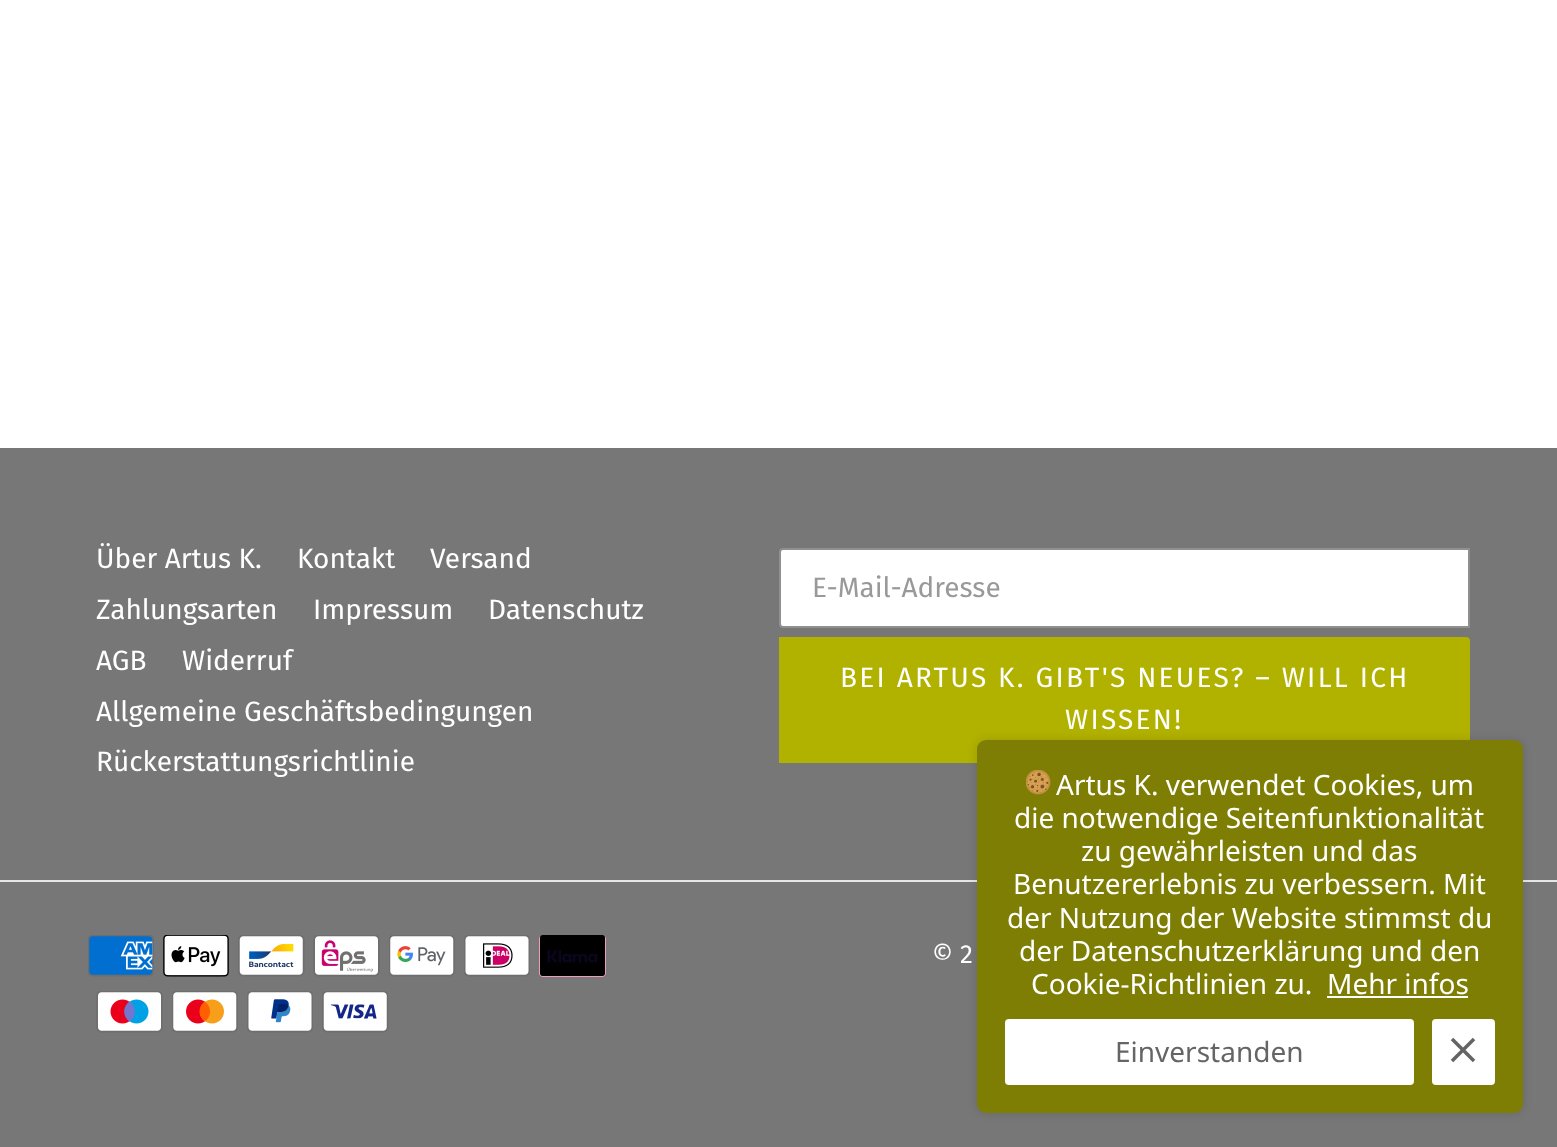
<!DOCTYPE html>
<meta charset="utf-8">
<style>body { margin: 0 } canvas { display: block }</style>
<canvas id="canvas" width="1557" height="1147"></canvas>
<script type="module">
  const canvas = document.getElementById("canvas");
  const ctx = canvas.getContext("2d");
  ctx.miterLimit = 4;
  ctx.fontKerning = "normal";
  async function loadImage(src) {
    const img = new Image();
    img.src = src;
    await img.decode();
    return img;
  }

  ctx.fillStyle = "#777777";
  ctx.fillRect(0, 0, 1557, 1147);
  ctx.fillStyle = "#ffffff";
  ctx.fillRect(0, 0, 1557, 448);
  ctx.font = "28px Fira Sans";
  ctx.fillText("Über Artus K.", 96, 568);
  ctx.fillText("Kontakt", 297, 568);
  ctx.fillText("Versand", 430, 568);
  ctx.fillText("Zahlungsarten", 96, 619);
  ctx.fillText("Impressum", 313, 619);
  ctx.fillText("Datenschutz", 488, 619);
  ctx.fillText("AGB", 96, 670);
  ctx.fillText("Widerruf", 182, 670);
  ctx.fillText("Allgemeine Geschäftsbedingungen", 96, 721);
  ctx.fillText("Rückerstattungsrichtlinie", 96, 771);
  ctx.beginPath();
  ctx.roundRect(780, 549, 689, 78, [3, 0, 0, 3]);
  ctx.fill();
  ctx.strokeStyle = "#909090";
  ctx.lineWidth = 2;
  ctx.stroke();
  ctx.fillStyle = "#999999";
  ctx.fillText("E-Mail-Adresse", 812, 597);
  ctx.fillStyle = "#b1b100";
  ctx.beginPath();
  ctx.roundRect(781, 639, 687, 122, [0, 2, 2, 0]);
  ctx.fill();
  ctx.strokeStyle = "#b1b100";
  ctx.lineWidth = 4;
  ctx.stroke();
  ctx.letterSpacing = "2.25px";
  ctx.fillStyle = "#ffffff";
  ctx.fillText("BEI ARTUS K. GIBT'S NEUES? – WILL ICH", 840, 687);
  ctx.fillText("WISSEN!", 1065, 729);
  ctx.fillStyle = "#e6e6e6";
  ctx.fillRect(0, 880, 1557, 2);
  ctx.drawImage(await loadImage("img1.png"), 88, 935, 66, 42);
  ctx.drawImage(await loadImage("img2.png"), 163, 935, 66, 42);
  ctx.drawImage(await loadImage("img3.png"), 238, 935, 67, 42);
  ctx.drawImage(await loadImage("img4.png"), 313, 935, 67, 42);
  ctx.drawImage(await loadImage("img5.png"), 389, 935, 66, 42);
  ctx.drawImage(await loadImage("img6.png"), 464, 935, 66, 42);
  ctx.drawImage(await loadImage("img7.png"), 539, 935, 67, 42);
  ctx.drawImage(await loadImage("img8.png"), 96, 991, 67, 42);
  ctx.drawImage(await loadImage("img9.png"), 172, 991, 66, 42);
  ctx.drawImage(await loadImage("img10.png"), 247, 991, 66, 42);
  ctx.drawImage(await loadImage("img11.png"), 322, 991, 67, 42);
  ctx.letterSpacing = "0px";
  ctx.font = "26px Fira Sans";
  ctx.fillStyle = "#ffffff";
  ctx.fillText("© 2", 932, 963);
  ctx.fillStyle = "#7e7e05";
  ctx.beginPath();
  ctx.roundRect(977, 740, 546, 373, 9);
  ctx.fill();
  ctx.save();
  ctx.beginPath();
  ctx.moveTo(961, 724);
  ctx.lineTo(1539, 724);
  ctx.lineTo(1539, 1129);
  ctx.lineTo(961, 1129);
  ctx.closePath();
  ctx.moveTo(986, 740);
  ctx.lineTo(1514, 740);
  ctx.bezierCurveTo(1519, 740, 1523, 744, 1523, 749);
  ctx.lineTo(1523, 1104);
  ctx.bezierCurveTo(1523, 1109, 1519, 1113, 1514, 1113);
  ctx.lineTo(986, 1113);
  ctx.bezierCurveTo(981, 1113, 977, 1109, 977, 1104);
  ctx.lineTo(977, 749);
  ctx.bezierCurveTo(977, 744, 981, 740, 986, 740);
  ctx.closePath();
  ctx.clip("evenodd");
  ctx.fillStyle = "rgba(0, 0, 0, 0.12)";
  ctx.filter = "blur(5px)";
  ctx.beginPath();
  ctx.roundRect(977, 740, 546, 373, 9);
  ctx.fill();
  ctx.filter = "none";
  ctx.restore();
  ctx.drawImage(await loadImage("img12.png"), 1026, 770, 25, 25);
  ctx.font = "28px Noto Sans";
  ctx.fillStyle = "#ffffff";
  ctx.fillText("Artus K. verwendet Cookies, um", 1056, 795);
  ctx.fillText("die notwendige Seitenfunktionalität", 1014, 828);
  ctx.fillText("zu gewährleisten und das", 1081, 861);
  ctx.fillText("Benutzererlebnis zu verbessern. Mit", 1013, 894);
  ctx.fillText("der Nutzung der Website stimmst du", 1007, 928);
  ctx.fillText("der Datenschutzerklärung und den", 1019, 961);
  ctx.fillText("Cookie-Richtlinien zu.", 1031, 994);
  ctx.fillText("Mehr infos", 1327, 994);
  ctx.fillRect(1327, 996, 141, 2);
  ctx.beginPath();
  ctx.roundRect(1005, 1019, 409, 66, 4);
  ctx.fill();
  ctx.fillStyle = "#656565";
  ctx.fillText("Einverstanden", 1115, 1062);
  ctx.fillStyle = "#ffffff";
  ctx.beginPath();
  ctx.roundRect(1432, 1019, 63, 66, 4);
  ctx.fill();
  ctx.drawImage(await loadImage("img13.png"), 1450, 1037, 26, 26);
</script>
